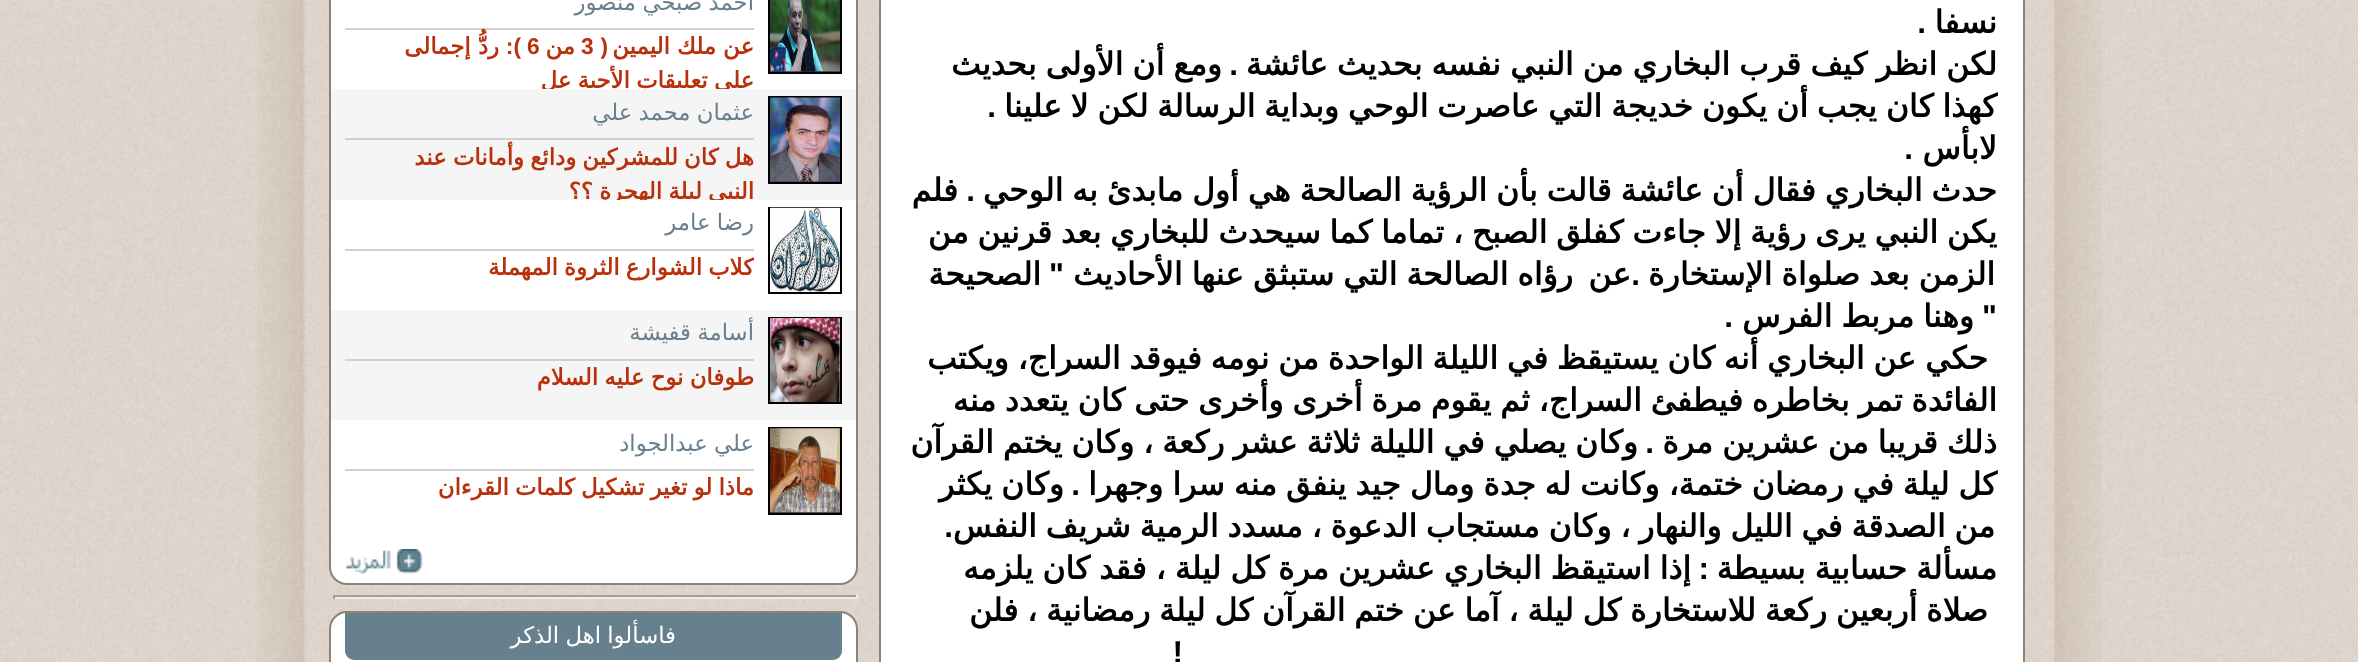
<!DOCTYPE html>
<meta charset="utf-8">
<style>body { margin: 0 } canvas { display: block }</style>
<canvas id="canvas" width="2358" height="662"></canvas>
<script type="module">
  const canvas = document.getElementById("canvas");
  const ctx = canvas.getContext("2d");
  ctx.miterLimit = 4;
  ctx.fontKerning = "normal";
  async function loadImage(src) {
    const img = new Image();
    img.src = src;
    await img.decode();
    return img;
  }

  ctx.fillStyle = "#ffffff";
  ctx.fillRect(0, 0, 2358, 662);
  ctx.drawImage(await loadImage("img1.png"), 0, 0, 2358, 662);
  ctx.drawImage(await loadImage("img2.png"), 257, 0, 1845, 662);
  ctx.beginPath();
  ctx.rect(880, -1, 1144, 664);
  ctx.fill();
  ctx.strokeStyle = "#8d8375";
  ctx.lineWidth = 2;
  ctx.stroke();
  ctx.direction = "rtl";
  ctx.font = "bold 31.5px DejaVu Sans";
  ctx.fillStyle = "#000000";
  ctx.fillText("نسفا", 1997, 33);
  ctx.font = "bold 31.5px Liberation Sans";
  ctx.fillText(".", 1926, 33);
  ctx.wordSpacing = "-1px";
  ctx.font = "bold 31.5px DejaVu Sans";
  ctx.fillText("لكن انظر كيف قرب البخاري من النبي نفسه بحديث عائشة", 1997, 75);
  ctx.wordSpacing = "0px";
  ctx.font = "bold 31.5px Liberation Sans";
  ctx.fillText(".", 1238, 75);
  ctx.wordSpacing = "-1px";
  ctx.font = "bold 31.5px DejaVu Sans";
  ctx.fillText("ومع أن الأولى بحديث", 1222, 75);
  ctx.wordSpacing = "-1.2px";
  ctx.fillText("كهذا كان يجب أن يكون خديجة التي عاصرت الوحي وبداية الرسالة لكن لا علينا", 1997, 117);
  ctx.wordSpacing = "0px";
  ctx.font = "bold 31.5px Liberation Sans";
  ctx.fillText(".", 996, 117);
  ctx.font = "bold 31.5px DejaVu Sans";
  ctx.fillText("لابأس", 1997, 159);
  ctx.font = "bold 31.5px Liberation Sans";
  ctx.fillText(".", 1913, 159);
  ctx.wordSpacing = "-1.1px";
  ctx.font = "bold 31.5px DejaVu Sans";
  ctx.fillText("حدث البخاري فقال أن عائشة قالت بأن الرؤية الصالحة هي أول مابدئ به الوحي", 1997, 201);
  ctx.wordSpacing = "0px";
  ctx.font = "bold 31.5px Liberation Sans";
  ctx.fillText(".", 975, 201);
  ctx.font = "bold 31.5px DejaVu Sans";
  ctx.fillText("فلم", 958, 201);
  ctx.wordSpacing = "-1.25px";
  ctx.fillText("يكن النبي يرى رؤية إلا جاءت كفلق الصبح ، تماما كما سيحدث للبخاري بعد قرنين من", 1997, 243);
  ctx.wordSpacing = "-1px";
  ctx.fillText("الزمن بعد صلواة الإستخارة", 1995, 285);
  ctx.wordSpacing = "0px";
  ctx.font = "bold 31.5px Liberation Sans";
  ctx.fillText(".", 1640, 285);
  ctx.font = "bold 31.5px DejaVu Sans";
  ctx.fillText("عن", 1631, 285);
  ctx.wordSpacing = "-1px";
  ctx.fillText("رؤاه الصالحة التي ستبثق عنها الأحاديث", 1573, 285);
  ctx.wordSpacing = "0px";
  ctx.font = "bold 31.5px Liberation Sans";
  ctx.fillText("\"", 1064, 285);
  ctx.font = "bold 31.5px DejaVu Sans";
  ctx.fillText("الصحيحة", 1041, 285);
  ctx.font = "bold 31.5px Liberation Sans";
  ctx.fillText("\"", 1997, 327);
  ctx.wordSpacing = "-1px";
  ctx.font = "bold 31.5px DejaVu Sans";
  ctx.fillText("وهنا مربط الفرس", 1974, 327);
  ctx.wordSpacing = "0px";
  ctx.font = "bold 31.5px Liberation Sans";
  ctx.fillText(".", 1733, 327);
  ctx.wordSpacing = "-1.25px";
  ctx.font = "bold 31.5px DejaVu Sans";
  ctx.fillText("حكي عن البخاري أنه كان يستيقظ في الليلة الواحدة من نومه فيوقد السراج، ويكتب", 1988, 369);
  ctx.fillText("الفائدة تمر بخاطره فيطفئ السراج، ثم يقوم مرة أخرى وأخرى حتى كان يتعدد منه", 1997, 411);
  ctx.wordSpacing = "-1.1px";
  ctx.fillText("ذلك قريبا من عشرين مرة", 1997, 453);
  ctx.wordSpacing = "0px";
  ctx.font = "bold 31.5px Liberation Sans";
  ctx.fillText(".", 1654, 453);
  ctx.wordSpacing = "-1.1px";
  ctx.font = "bold 31.5px DejaVu Sans";
  ctx.fillText("وكان يصلي في الليلة ثلاثة عشر ركعة ، وكان يختم القرآن", 1638, 453);
  ctx.fillText("كل ليلة في رمضان ختمة، وكانت له جدة ومال جيد ينفق منه سرا وجهرا", 1997, 495);
  ctx.wordSpacing = "0px";
  ctx.font = "bold 31.5px Liberation Sans";
  ctx.fillText(".", 1080, 495);
  ctx.wordSpacing = "-1.1px";
  ctx.font = "bold 31.5px DejaVu Sans";
  ctx.fillText("وكان يكثر", 1064, 495);
  ctx.wordSpacing = "-1.25px";
  ctx.fillText("من الصدقة في الليل والنهار ، وكان مستجاب الدعوة ، مسدد الرمية شريف النفس", 1995, 537);
  ctx.wordSpacing = "0px";
  ctx.font = "bold 31.5px Liberation Sans";
  ctx.fillText(".", 953, 537);
  ctx.wordSpacing = "-1px";
  ctx.font = "bold 31.5px DejaVu Sans";
  ctx.fillText("مسألة حسابية بسيطة", 1997, 579);
  ctx.wordSpacing = "0px";
  ctx.font = "bold 31.5px Liberation Sans";
  ctx.fillText(":", 1709, 579);
  ctx.wordSpacing = "-1px";
  ctx.font = "bold 31.5px DejaVu Sans";
  ctx.fillText("إذا استيقظ البخاري عشرين مرة كل ليلة ، فقد كان يلزمه", 1691, 579);
  ctx.wordSpacing = "-1.25px";
  ctx.fillText("صلاة أربعين ركعة للاستخارة كل ليلة ، آما عن ختم القرآن كل ليلة رمضانية ، فلن", 1988, 621);
  ctx.wordSpacing = "0px";
  ctx.font = "bold 31.5px Liberation Sans";
  ctx.fillText("!", 1183, 663);
  ctx.fillStyle = "#ffffff";
  ctx.beginPath();
  ctx.roundRect(330, -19, 527, 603, 17);
  ctx.fill();
  ctx.stroke();
  ctx.fillStyle = "#333333";
  ctx.fillRect(770, 71, 70, 1);
  ctx.strokeStyle = "#000000";
  ctx.strokeRect(769, -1, 72, 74);
  ctx.drawImage(await loadImage("img3.png"), 770, 0, 70, 72);
  ctx.wordSpacing = "-1px";
  ctx.font = "22.75px DejaVu Sans";
  ctx.fillStyle = "#67808d";
  ctx.fillText("آحمد صبحي", 754, 10);
  ctx.wordSpacing = "0px";
  ctx.fillText("منصور", 636, 10);
  ctx.fillStyle = "#d0d0d0";
  ctx.fillRect(345, 28, 409, 2);
  ctx.font = "bold 22.75px DejaVu Sans";
  ctx.fillStyle = "#b8310c";
  ctx.fillText("عن ملك اليمين", 754, 54);
  ctx.font = "bold 22.75px Liberation Sans";
  ctx.fillText("(", 608, 54);
  ctx.direction = "ltr";
  ctx.fillText("3", 581, 54);
  ctx.direction = "rtl";
  ctx.font = "bold 22.75px DejaVu Sans";
  ctx.fillText("من", 575, 54);
  ctx.direction = "ltr";
  ctx.font = "bold 22.75px Liberation Sans";
  ctx.fillText("6", 527, 54);
  ctx.direction = "rtl";
  ctx.fillText("):", 521, 54);
  ctx.font = "bold 22.75px DejaVu Sans";
  ctx.fillText("ردُّ إجمالى", 499, 54);
  ctx.save();
  ctx.beginPath();
  ctx.rect(345, 30, 409, 59);
  ctx.clip();
  ctx.wordSpacing = "-1px";
  ctx.fillText("على تعليقات الأحبة عل", 754, 88);
  ctx.restore();
  ctx.fillStyle = "#f5f5f5";
  ctx.fillRect(331, 89, 525, 111);
  ctx.fillStyle = "#333333";
  ctx.fillRect(770, 181, 70, 1);
  ctx.strokeRect(769, 97, 72, 86);
  ctx.drawImage(await loadImage("img4.png"), 770, 97, 70, 85);
  ctx.wordSpacing = "-1px";
  ctx.font = "22.75px DejaVu Sans";
  ctx.fillStyle = "#67808d";
  ctx.fillText("عثمان محمد علي", 754, 120);
  ctx.fillStyle = "#d0d0d0";
  ctx.fillRect(345, 138, 409, 2);
  ctx.save();
  ctx.beginPath();
  ctx.rect(345, 140, 409, 60);
  ctx.clip();
  ctx.font = "bold 22.75px DejaVu Sans";
  ctx.fillStyle = "#b8310c";
  ctx.fillText("هل كان للمشركين ودائع وأمانات عند", 754, 165);
  ctx.fillText("النبى ليلة الهجرة ؟؟", 754, 199);
  ctx.restore();
  ctx.strokeRect(769, 208, 72, 85);
  ctx.drawImage(await loadImage("img5.png"), 770, 207, 70, 85);
  ctx.fillStyle = "#67808d";
  ctx.fillText("رضا عامر", 754, 230);
  ctx.fillStyle = "#d0d0d0";
  ctx.fillRect(345, 249, 409, 2);
  ctx.save();
  ctx.beginPath();
  ctx.rect(345, 250, 409, 35);
  ctx.clip();
  ctx.font = "bold 22.75px DejaVu Sans";
  ctx.fillStyle = "#b8310c";
  ctx.fillText("كلاب الشوارع الثروة المهملة", 754, 275);
  ctx.restore();
  ctx.fillStyle = "#f5f5f5";
  ctx.fillRect(331, 310, 525, 110);
  ctx.strokeRect(769, 318, 72, 85);
  ctx.drawImage(await loadImage("img6.png"), 770, 318, 70, 84);
  ctx.wordSpacing = "0px";
  ctx.fillStyle = "#67808d";
  ctx.fillText("أسامة", 754, 340);
  ctx.fillText("قفيشة", 691, 340);
  ctx.fillStyle = "#d0d0d0";
  ctx.fillRect(345, 359, 409, 2);
  ctx.save();
  ctx.beginPath();
  ctx.rect(345, 361, 409, 35);
  ctx.clip();
  ctx.wordSpacing = "-1px";
  ctx.font = "bold 22.75px DejaVu Sans";
  ctx.fillStyle = "#b8310c";
  ctx.fillText("طوفان نوح عليه السلام", 754, 385);
  ctx.restore();
  ctx.fillStyle = "#333333";
  ctx.fillRect(770, 512, 70, 1);
  ctx.strokeRect(769, 428, 72, 86);
  ctx.drawImage(await loadImage("img7.png"), 770, 428, 70, 85);
  ctx.wordSpacing = "-1px";
  ctx.fillStyle = "#67808d";
  ctx.fillText("علي عبدالجواد", 754, 451);
  ctx.fillStyle = "#d0d0d0";
  ctx.fillRect(345, 469, 409, 2);
  ctx.save();
  ctx.beginPath();
  ctx.rect(345, 471, 409, 35);
  ctx.clip();
  ctx.font = "bold 22.75px DejaVu Sans";
  ctx.fillStyle = "#b8310c";
  ctx.fillText("ماذا لو تغير تشكيل كلمات القرءان", 754, 495);
  ctx.restore();
  ctx.drawImage(await loadImage("img8.png"), 346, 549, 77, 25);
  ctx.fillStyle = "#9f9f9f";
  ctx.fillRect(333, 595, 525, 2);
  ctx.fillStyle = "#eeeeee";
  ctx.fillRect(856, 595, 2, 4);
  ctx.fillRect(333, 597, 525, 2);
  ctx.fillStyle = "#9f9f9f";
  ctx.fillRect(333, 595, 2, 4);
  ctx.fillStyle = "#ffffff";
  ctx.beginPath();
  ctx.roundRect(330, 612, 527, 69, 17);
  ctx.fill();
  ctx.strokeStyle = "#8d8375";
  ctx.stroke();
  ctx.fillStyle = "#67808d";
  ctx.beginPath();
  ctx.roundRect(345, 613, 497, 47, [0, 0, 9, 9]);
  ctx.fill();
  ctx.fillStyle = "#ffffff";
  ctx.fillText("فاسألوا اهل الذكر", 676, 643);
</script>
